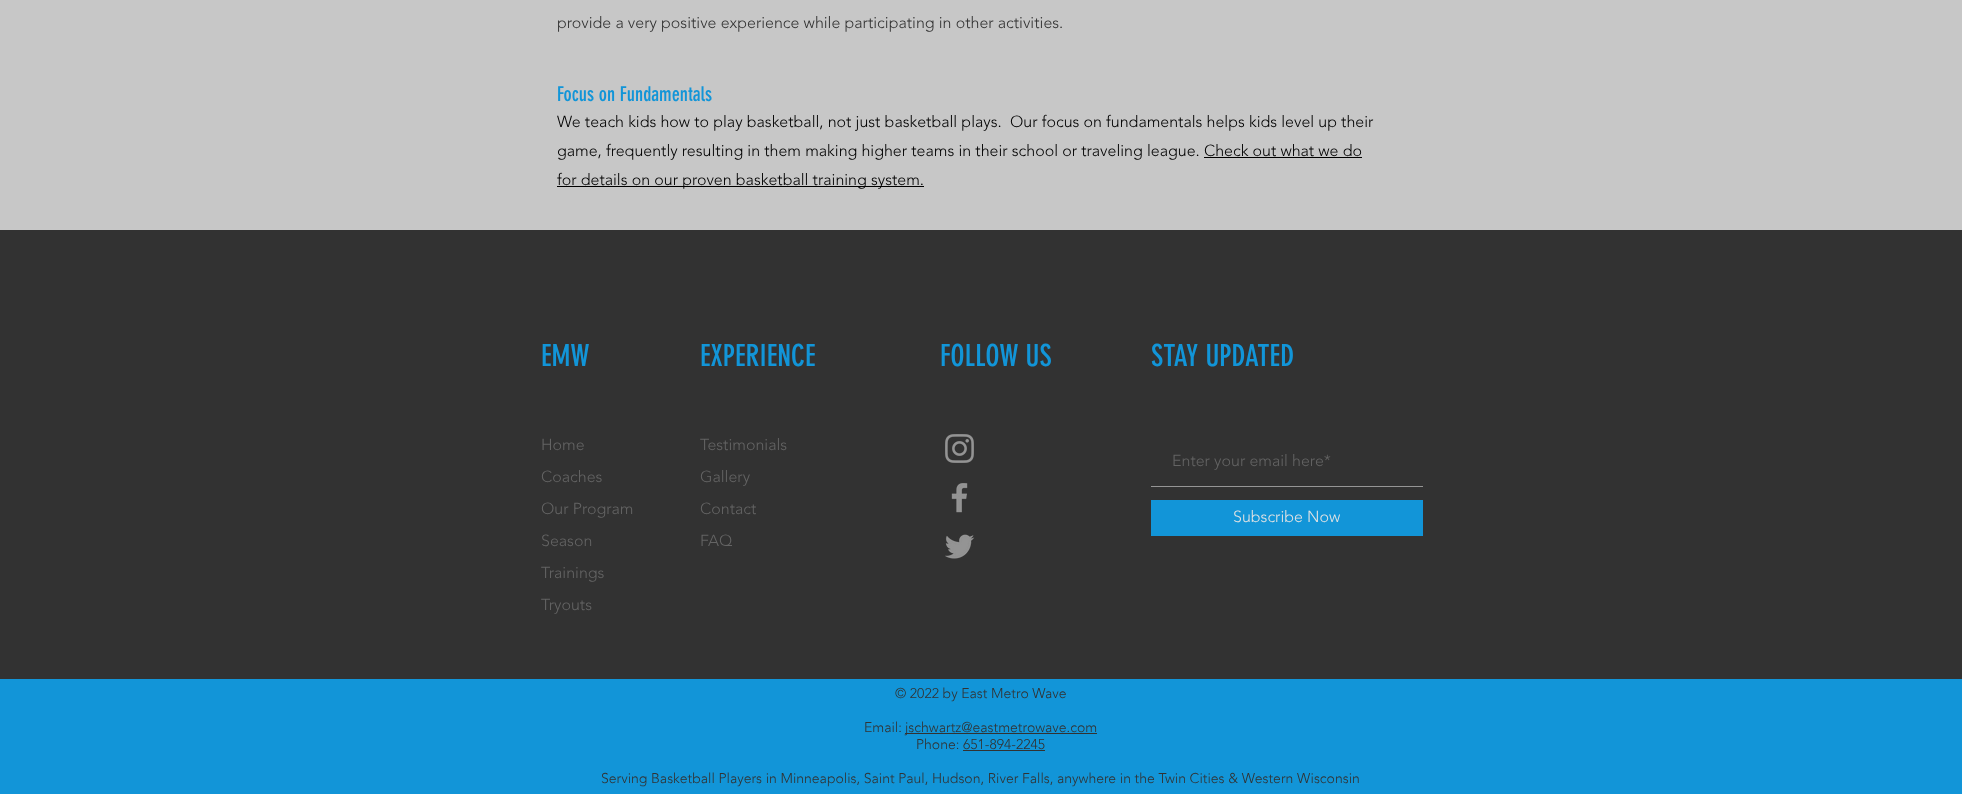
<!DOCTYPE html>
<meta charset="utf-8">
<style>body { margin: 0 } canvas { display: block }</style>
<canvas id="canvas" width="1962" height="794"></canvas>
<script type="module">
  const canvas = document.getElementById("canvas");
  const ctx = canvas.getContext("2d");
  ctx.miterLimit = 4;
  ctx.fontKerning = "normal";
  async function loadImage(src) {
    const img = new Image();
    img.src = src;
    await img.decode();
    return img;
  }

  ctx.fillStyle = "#c7c7c7";
  ctx.fillRect(0, 0, 1962, 794);
  ctx.font = "300 16px 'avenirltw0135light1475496'";
  ctx.fillStyle = "#323232";
  ctx.fillText("provide a very positive experience while participating in other activities.", 557, 28);
  ctx.font = "20px 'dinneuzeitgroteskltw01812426'";
  ctx.fillStyle = "#1295d8";
  ctx.fillText("Focus on Fundamentals", 557, 101);
  ctx.font = "300 16px 'avenirltw0135light1475496'";
  ctx.fillStyle = "#000000";
  ctx.fillText("We teach kids how to play basketball, not just basketball plays.  Our focus on fundamentals helps kids level up their", 557, 127);
  ctx.fillText("game, frequently resulting in them making higher teams in their school or traveling league. Check out what we do", 557, 156);
  ctx.fillRect(1204, 157, 158, 1);
  ctx.fillRect(557, 186, 367, 1);
  ctx.fillText("for details on our proven basketball training system.", 557, 185);
  ctx.fillStyle = "#323232";
  ctx.fillRect(0, 230, 1962, 449);
  ctx.font = "30px 'dinneuzeitgroteskltw01812426'";
  ctx.fillStyle = "#1295d8";
  ctx.fillText("EMW", 541, 366);
  ctx.fillText("EXPERIENCE", 700, 366);
  ctx.fillText("FOLLOW US", 940, 366);
  ctx.fillText("STAY UPDATED", 1151, 366);
  ctx.font = "300 16px 'avenirltw0135light1475496'";
  ctx.fillStyle = "#646464";
  ctx.fillText("Home", 541, 450);
  ctx.fillText("Coaches", 541, 482);
  ctx.fillText("Our Program", 541, 514);
  ctx.fillText("Season", 541, 546);
  ctx.fillText("Trainings", 541, 578);
  ctx.fillText("Tryouts", 541, 610);
  ctx.fillText("Testimonials", 700, 450);
  ctx.fillText("Gallery", 700, 482);
  ctx.fillText("Contact", 700, 514);
  ctx.fillText("FAQ", 700, 546);
  ctx.drawImage(await loadImage("img1.png"), 945, 434, 29, 29);
  ctx.drawImage(await loadImage("img2.png"), 951, 483, 17, 30);
  ctx.drawImage(await loadImage("img3.png"), 945, 534, 30, 25);
  ctx.fillStyle = "#959595";
  ctx.fillRect(1151, 486, 272, 1);
  ctx.fillStyle = "#646464";
  ctx.fillText("Enter your email here*", 1172, 466);
  ctx.fillStyle = "#1295d8";
  ctx.fillRect(1151, 500, 272, 36);
  ctx.fillStyle = "#e3e3e3";
  ctx.fillText("Subscribe Now", 1233, 522);
  ctx.fillStyle = "#1295d8";
  ctx.fillRect(0, 679, 1962, 115);
  ctx.font = "300 14px 'avenirltw0135light1475496'";
  ctx.fillStyle = "#323232";
  ctx.fillText("© 2022 by East Metro Wave", 895, 698);
  ctx.fillText("Email:", 864, 732);
  ctx.fillRect(905, 733, 192, 1);
  ctx.fillText("jschwartz@eastmetrowave.com", 905, 732);
  ctx.fillText("Phone: 651-894-2245", 916, 749);
  ctx.fillRect(963, 750, 82, 1);
  ctx.fillText("Serving Basketball Players in Minneapolis, Saint Paul, Hudson, River Falls, anywhere in the Twin Cities & Western Wisconsin", 601, 783);
</script>
